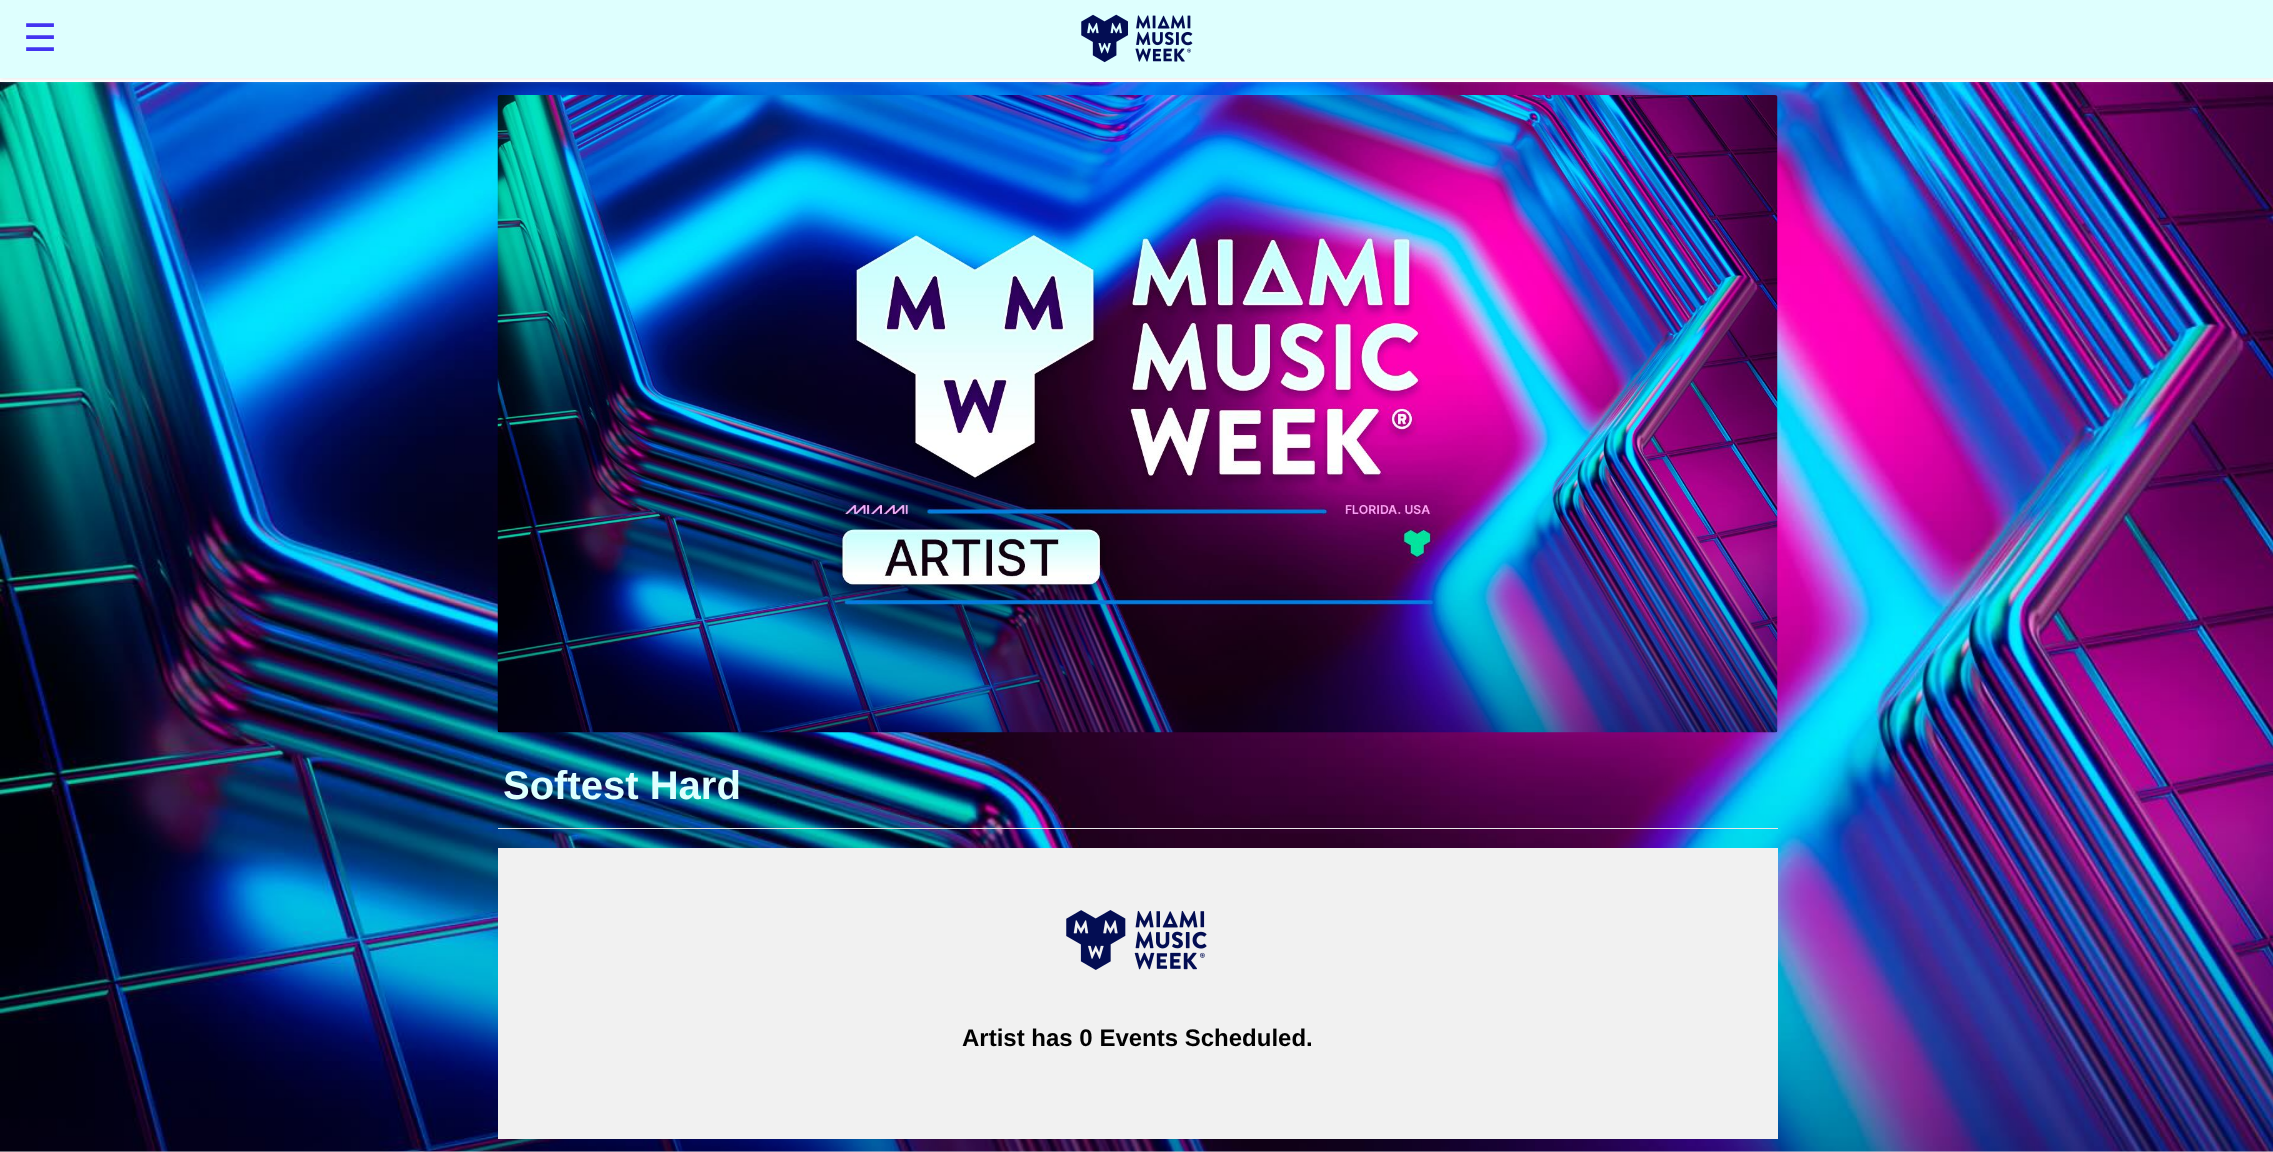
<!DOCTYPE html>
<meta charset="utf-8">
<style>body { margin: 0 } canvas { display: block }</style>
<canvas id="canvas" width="2273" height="1152"></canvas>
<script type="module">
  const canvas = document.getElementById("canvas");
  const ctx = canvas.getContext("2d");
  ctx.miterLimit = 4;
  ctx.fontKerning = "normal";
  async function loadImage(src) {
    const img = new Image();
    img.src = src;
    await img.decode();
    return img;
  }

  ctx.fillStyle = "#ffffff";
  ctx.fillRect(0, 0, 2273, 1152);
  ctx.drawImage(await loadImage("img2.png"), 0, 82, 2273, 1070);
  ctx.fillStyle = "#e9e9e9";
  ctx.filter = "blur(2.5px)";
  ctx.beginPath();
  ctx.rect(0, 1, 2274, 78);
  ctx.fill();
  ctx.filter = "none";
  ctx.fillStyle = "#defffe";
  ctx.fillRect(0, 0, 2273, 78);
  ctx.font = "38px DejaVu Sans";
  ctx.fillStyle = "#4233f1";
  ctx.fillText("☰", 23, 51);
  ctx.drawImage(await loadImage("img1.png"), 1081, 14, 112, 49);
  ctx.drawImage(await loadImage("img3.png"), 497, 95, 1281, 638);
  ctx.fillStyle = "#e8e8e8";
  ctx.fillRect(498, 828, 1280, 1);
  ctx.font = "bold 40px Liberation Sans";
  ctx.fillStyle = "#defffe";
  ctx.fillText("Softest Hard", 503, 799);
  ctx.fillStyle = "#f1f1f1";
  ctx.fillRect(498, 848, 1280, 291);
  ctx.drawImage(await loadImage("img4.png"), 1066, 910, 141, 60);
  ctx.font = "bold 24px Liberation Sans";
  ctx.fillStyle = "#000000";
  ctx.fillText("Artist has 0 Events Scheduled.", 962, 1046);
  ctx.fillStyle = "rgba(221, 221, 224, 0.5)";
  ctx.fillRect(0, 1151, 2273, 1);
</script>
